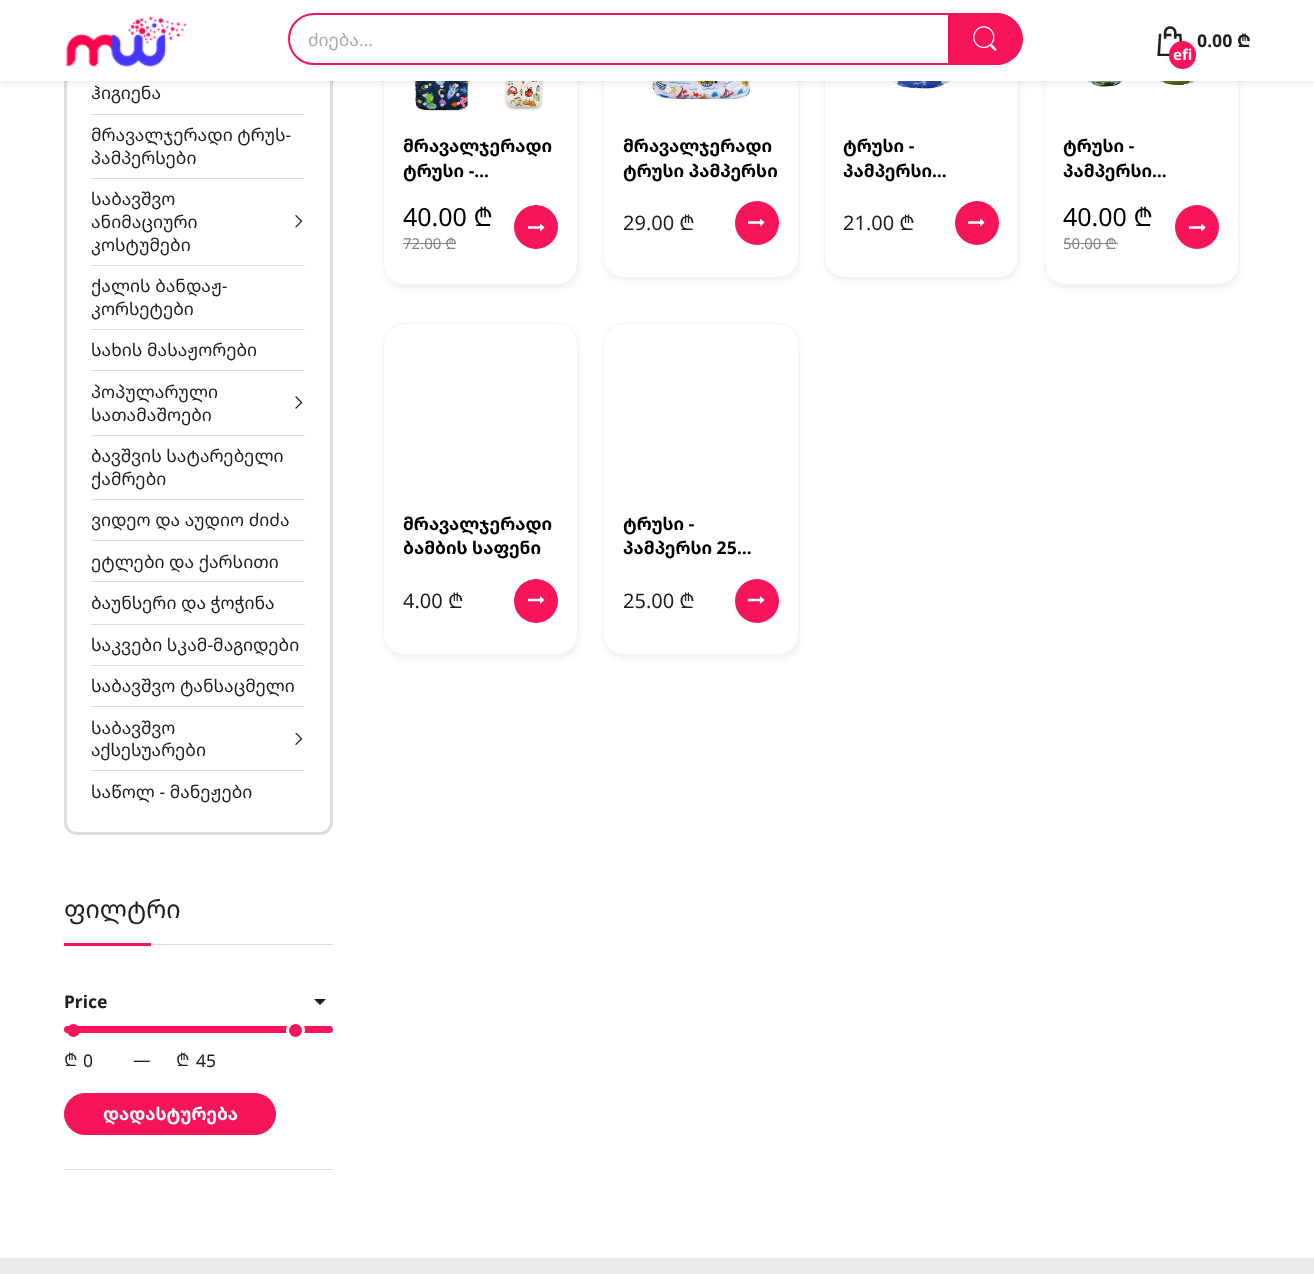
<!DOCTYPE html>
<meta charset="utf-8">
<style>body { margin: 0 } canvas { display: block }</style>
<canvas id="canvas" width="1314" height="1274"></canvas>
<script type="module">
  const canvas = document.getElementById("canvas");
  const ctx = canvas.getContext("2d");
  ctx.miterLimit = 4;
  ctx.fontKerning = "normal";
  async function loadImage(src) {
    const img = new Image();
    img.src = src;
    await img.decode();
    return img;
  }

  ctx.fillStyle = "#ffffff";
  ctx.fillRect(0, 0, 1314, 1274);
  ctx.beginPath();
  ctx.roundRect(65.5, -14.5, 266, 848, 11.5);
  ctx.strokeStyle = "#dddddd";
  ctx.lineWidth = 3;
  ctx.stroke();
  ctx.fillStyle = "rgba(170, 170, 170, 0.16)";
  ctx.filter = "blur(3px)";
  ctx.beginPath();
  ctx.roundRect(384, -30, 195, 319, 21);
  ctx.fill();
  ctx.filter = "none";
  ctx.fillStyle = "#ffffff";
  ctx.beginPath();
  ctx.roundRect(383.5, -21.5, 194, 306, 20.5);
  ctx.fill();
  ctx.strokeStyle = "#f6f3f3";
  ctx.lineWidth = 1;
  ctx.stroke();
  ctx.drawImage(await loadImage("img7.png"), 414, 81, 130, 30);
  ctx.fillStyle = "rgba(170, 170, 170, 0.16)";
  ctx.filter = "blur(3px)";
  ctx.beginPath();
  ctx.roundRect(604, -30, 196, 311, 21);
  ctx.fill();
  ctx.filter = "none";
  ctx.fillStyle = "#ffffff";
  ctx.beginPath();
  ctx.roundRect(603.5, -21.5, 195, 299, 20.5);
  ctx.fill();
  ctx.stroke();
  ctx.drawImage(await loadImage("img9.png"), 651, 81, 100, 19);
  ctx.fillStyle = "rgba(170, 170, 170, 0.16)";
  ctx.filter = "blur(3px)";
  ctx.beginPath();
  ctx.roundRect(825, -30, 195, 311, 21);
  ctx.fill();
  ctx.filter = "none";
  ctx.fillStyle = "#ffffff";
  ctx.beginPath();
  ctx.roundRect(824.5, -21.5, 194, 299, 20.5);
  ctx.fill();
  ctx.stroke();
  ctx.drawImage(await loadImage("img10.png"), 872, 81, 102, 8);
  ctx.fillStyle = "rgba(170, 170, 170, 0.16)";
  ctx.filter = "blur(3px)";
  ctx.beginPath();
  ctx.roundRect(1045, -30, 195, 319, 21);
  ctx.fill();
  ctx.filter = "none";
  ctx.fillStyle = "#ffffff";
  ctx.beginPath();
  ctx.roundRect(1044.5, -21.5, 194, 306, 20.5);
  ctx.fill();
  ctx.stroke();
  ctx.drawImage(await loadImage("img11.png"), 1077, 81, 130, 6);
  ctx.fillStyle = "rgba(32, 33, 36, 0.15)";
  ctx.filter = "blur(4px)";
  ctx.beginPath();
  ctx.rect(0, 0, 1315, 81);
  ctx.fill();
  ctx.filter = "none";
  ctx.fillStyle = "#ffffff";
  ctx.fillRect(0, 0, 1314, 81);
  ctx.drawImage(await loadImage("img1.png"), 66, 16, 121, 51);
  ctx.beginPath();
  ctx.roundRect(289.5, 14.5, 730, 49, 24.5);
  ctx.strokeStyle = "#f51558";
  ctx.lineWidth = 3;
  ctx.stroke();
  ctx.beginPath();
  ctx.roundRect(290, 15, 729, 48, 24);
  ctx.fill();
  ctx.font = "17.5px Noto Sans Georgian";
  ctx.fillStyle = "#a9a9a9";
  ctx.fillText("ძიება...", 308, 46);
  ctx.fillStyle = "#f51558";
  ctx.beginPath();
  ctx.roundRect(948.5, 13.5, 74, 51, [0, 25.5, 25.5, 0]);
  ctx.fill();
  ctx.lineWidth = 1;
  ctx.stroke();
  ctx.drawImage(await loadImage("img2.png"), 973, 26, 24, 25);
  ctx.font = "bold 17.5px Noto Sans Georgian";
  ctx.fillStyle = "#1f1d1d";
  ctx.fillText("0.00 ₾", 1197, 47);
  ctx.drawImage(await loadImage("img3.png"), 1157, 26, 25, 30);
  ctx.fillStyle = "#f51558";
  ctx.beginPath();
  ctx.roundRect(1169, 41, 27, 28, 13.5);
  ctx.fill();
  ctx.font = "bold 15px Noto Sans Georgian";
  ctx.fillStyle = "#ffffff";
  ctx.fillText("efi", 1173, 60);
  ctx.fillStyle = "#dddddd";
  ctx.fillRect(91, 114, 214, 1);
  ctx.font = "17.5px Noto Sans Georgian";
  ctx.fillStyle = "#1f1d1d";
  ctx.fillText("ჰიგიენა", 91, 99);
  ctx.fillStyle = "#dddddd";
  ctx.fillRect(91, 178, 214, 1);
  ctx.fillStyle = "#1f1d1d";
  ctx.fillText("მრავალჯერადი ტრუს-", 91, 141);
  ctx.fillText("პამპერსები", 91, 164);
  ctx.fillStyle = "#dddddd";
  ctx.fillRect(91, 265, 214, 1);
  ctx.fillStyle = "#1f1d1d";
  ctx.fillText("საბავშვო", 91, 205);
  ctx.fillText("ანიმაციური", 91, 228);
  ctx.fillText("კოსტუმები", 91, 251);
  ctx.drawImage(await loadImage("img4.png"), 295, 215, 8, 13);
  ctx.fillStyle = "#dddddd";
  ctx.fillRect(91, 329, 214, 1);
  ctx.fillStyle = "#1f1d1d";
  ctx.fillText("ქალის ბანდაჟ-", 91, 292);
  ctx.fillText("კორსეტები", 91, 315);
  ctx.fillStyle = "#dddddd";
  ctx.fillRect(91, 370, 214, 1);
  ctx.fillStyle = "#1f1d1d";
  ctx.fillText("სახის მასაჟორები", 91, 356);
  ctx.fillStyle = "#dddddd";
  ctx.fillRect(91, 435, 214, 1);
  ctx.fillStyle = "#1f1d1d";
  ctx.fillText("პოპულარული", 91, 398);
  ctx.fillText("სათამაშოები", 91, 421);
  ctx.drawImage(await loadImage("img5.png"), 295, 396, 8, 13);
  ctx.fillStyle = "#dddddd";
  ctx.fillRect(91, 499, 214, 1);
  ctx.fillStyle = "#1f1d1d";
  ctx.fillText("ბავშვის სატარებელი", 91, 462);
  ctx.fillText("ქამრები", 91, 485);
  ctx.fillStyle = "#dddddd";
  ctx.fillRect(91, 540, 214, 1);
  ctx.fillStyle = "#1f1d1d";
  ctx.fillText("ვიდეო და აუდიო ძიძა", 91, 526);
  ctx.fillStyle = "#dddddd";
  ctx.fillRect(91, 581, 214, 1);
  ctx.fillStyle = "#1f1d1d";
  ctx.fillText("ეტლები და ქარსითი", 91, 568);
  ctx.fillStyle = "#dddddd";
  ctx.fillRect(91, 624, 214, 1);
  ctx.fillStyle = "#1f1d1d";
  ctx.fillText("ბაუნსერი და ჭოჭინა", 91, 609);
  ctx.fillStyle = "#dddddd";
  ctx.fillRect(91, 665, 214, 1);
  ctx.fillStyle = "#1f1d1d";
  ctx.fillText("საკვები სკამ-მაგიდები", 91, 651);
  ctx.fillStyle = "#dddddd";
  ctx.fillRect(91, 706, 214, 1);
  ctx.fillStyle = "#1f1d1d";
  ctx.fillText("საბავშვო ტანსაცმელი", 91, 692);
  ctx.fillStyle = "#dddddd";
  ctx.fillRect(91, 770, 214, 1);
  ctx.fillStyle = "#1f1d1d";
  ctx.fillText("საბავშვო", 91, 734);
  ctx.fillText("აქსესუარები", 91, 756);
  ctx.drawImage(await loadImage("img6.png"), 295, 733, 8, 12);
  ctx.fillText("საწოლ - მანეჟები", 91, 798);
  ctx.fillStyle = "#dddddd";
  ctx.fillRect(151, 944, 182, 1);
  ctx.font = "25px Noto Sans Georgian";
  ctx.fillStyle = "#1f1d1d";
  ctx.fillText("ფილტრი", 64, 918);
  ctx.fillStyle = "#f51558";
  ctx.fillRect(64, 943, 87, 3);
  ctx.fillStyle = "#dddddd";
  ctx.fillRect(64, 1169, 269, 1);
  ctx.font = "bold 17.5px Noto Sans Georgian";
  ctx.fillStyle = "#1f1d1d";
  ctx.fillText("Price", 64, 1008);
  ctx.beginPath();
  ctx.moveTo(314, 999);
  ctx.lineTo(320, 1005);
  ctx.lineTo(326, 999);
  ctx.closePath();
  ctx.fill("evenodd");
  ctx.fillStyle = "#f51558";
  ctx.beginPath();
  ctx.arc(73.5, 1030.5, 8, 0, Math.PI * 2);
  ctx.fill();
  ctx.strokeStyle = "#ffffff";
  ctx.lineWidth = 3;
  ctx.stroke();
  ctx.beginPath();
  ctx.roundRect(64, 1026, 269, 7, 3.5);
  ctx.fill();
  ctx.beginPath();
  ctx.arc(295.5, 1030.5, 8, 0, Math.PI * 2);
  ctx.fill();
  ctx.stroke();
  ctx.font = "17.5px Noto Sans Georgian";
  ctx.fillStyle = "#1f1d1d";
  ctx.fillText("₾", 64, 1066);
  ctx.fillText("0", 83, 1067);
  ctx.fillText("—", 133, 1066);
  ctx.fillText("₾", 176, 1066);
  ctx.fillText("45", 196, 1067);
  ctx.fillStyle = "#f51558";
  ctx.beginPath();
  ctx.roundRect(64.5, 1093.5, 211, 41, 20.5);
  ctx.fill();
  ctx.strokeStyle = "#f51558";
  ctx.lineWidth = 1;
  ctx.stroke();
  ctx.font = "bold 17.5px Noto Sans Georgian";
  ctx.fillStyle = "#ffffff";
  ctx.fillText("დადასტურება", 103, 1120);
  ctx.fillStyle = "#000000";
  ctx.fillText("მრავალჯერადი", 403, 152);
  ctx.fillText("ტრუსი -…", 403, 177);
  ctx.font = "25px Noto Sans Georgian";
  ctx.fillText("40.00 ₾", 403, 226);
  ctx.font = "15px Noto Sans Georgian";
  ctx.fillStyle = "#848484";
  ctx.fillText("72.00 ₾", 403, 249);
  ctx.fillRect(403, 243, 53, 1);
  ctx.fillStyle = "#f51558";
  ctx.beginPath();
  ctx.arc(536, 227, 22, 0, Math.PI * 2);
  ctx.fill();
  ctx.drawImage(await loadImage("img8.png"), 528, 223, 17, 9);
  ctx.font = "bold 17.5px Noto Sans Georgian";
  ctx.fillStyle = "#000000";
  ctx.fillText("მრავალჯერადი", 623, 152);
  ctx.fillText("ტრუსი პამპერსი", 623, 177);
  ctx.font = "20px Noto Sans Georgian";
  ctx.fillStyle = "#1f1d1d";
  ctx.fillText("29.00 ₾", 623, 230);
  ctx.fillStyle = "#f51558";
  ctx.beginPath();
  ctx.arc(757, 223, 22, 0, Math.PI * 2);
  ctx.fill();
  ctx.drawImage(await loadImage("img8.png"), 748, 218, 17, 9);
  ctx.font = "bold 17.5px Noto Sans Georgian";
  ctx.fillStyle = "#000000";
  ctx.fillText("ტრუსი -", 843, 152);
  ctx.fillText("პამპერსი…", 843, 177);
  ctx.font = "20px Noto Sans Georgian";
  ctx.fillStyle = "#1f1d1d";
  ctx.fillText("21.00 ₾", 843, 230);
  ctx.fillStyle = "#f51558";
  ctx.beginPath();
  ctx.arc(977, 223, 22, 0, Math.PI * 2);
  ctx.fill();
  ctx.drawImage(await loadImage("img8.png"), 968, 218, 17, 9);
  ctx.font = "bold 17.5px Noto Sans Georgian";
  ctx.fillStyle = "#000000";
  ctx.fillText("ტრუსი -", 1063, 152);
  ctx.fillText("პამპერსი…", 1063, 177);
  ctx.font = "25px Noto Sans Georgian";
  ctx.fillText("40.00 ₾", 1063, 226);
  ctx.font = "15px Noto Sans Georgian";
  ctx.fillStyle = "#848484";
  ctx.fillText("50.00 ₾", 1063, 249);
  ctx.fillRect(1064, 243, 54, 1);
  ctx.fillStyle = "#f51558";
  ctx.beginPath();
  ctx.arc(1197, 227, 22, 0, Math.PI * 2);
  ctx.fill();
  ctx.drawImage(await loadImage("img12.png"), 1189, 223, 17, 9);
  ctx.fillStyle = "rgba(170, 170, 170, 0.16)";
  ctx.filter = "blur(3px)";
  ctx.beginPath();
  ctx.roundRect(384, 326, 195, 333, 21);
  ctx.fill();
  ctx.filter = "none";
  ctx.fillStyle = "#ffffff";
  ctx.beginPath();
  ctx.roundRect(383.5, 323.5, 194, 331, 20.5);
  ctx.fill();
  ctx.strokeStyle = "#f6f3f3";
  ctx.stroke();
  ctx.font = "bold 17.5px Noto Sans Georgian";
  ctx.fillStyle = "#000000";
  ctx.fillText("მრავალჯერადი", 403, 530);
  ctx.fillText("ბამბის საფენი", 403, 554);
  ctx.font = "20px Noto Sans Georgian";
  ctx.fillStyle = "#1f1d1d";
  ctx.fillText("4.00 ₾", 403, 608);
  ctx.fillStyle = "#f51558";
  ctx.beginPath();
  ctx.arc(536, 601, 22, 0, Math.PI * 2);
  ctx.fill();
  ctx.drawImage(await loadImage("img13.png"), 528, 596, 17, 8);
  ctx.fillStyle = "rgba(170, 170, 170, 0.16)";
  ctx.filter = "blur(3px)";
  ctx.beginPath();
  ctx.roundRect(604, 326, 196, 333, 21);
  ctx.fill();
  ctx.filter = "none";
  ctx.fillStyle = "#ffffff";
  ctx.beginPath();
  ctx.roundRect(603.5, 323.5, 195, 331, 20.5);
  ctx.fill();
  ctx.stroke();
  ctx.font = "bold 17.5px Noto Sans Georgian";
  ctx.fillStyle = "#000000";
  ctx.fillText("ტრუსი -", 623, 530);
  ctx.fillText("პამპერსი 25…", 623, 554);
  ctx.font = "20px Noto Sans Georgian";
  ctx.fillStyle = "#1f1d1d";
  ctx.fillText("25.00 ₾", 623, 608);
  ctx.fillStyle = "#f51558";
  ctx.beginPath();
  ctx.arc(757, 601, 22, 0, Math.PI * 2);
  ctx.fill();
  ctx.drawImage(await loadImage("img13.png"), 748, 596, 17, 8);
  ctx.fillStyle = "#eaeaea";
  ctx.fillRect(0, 1258, 1314, 16);
</script>
